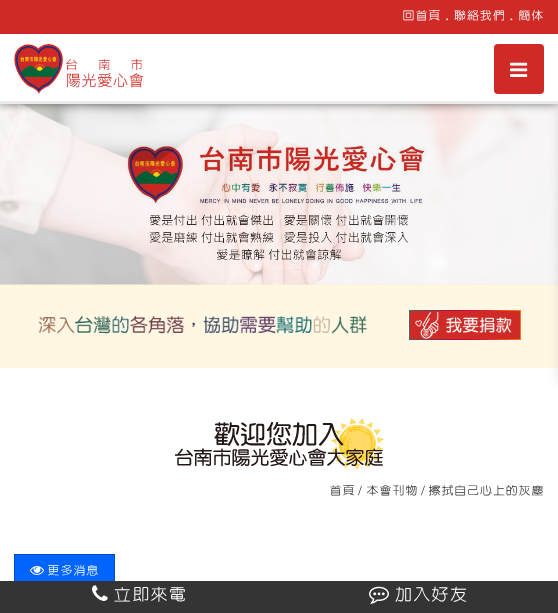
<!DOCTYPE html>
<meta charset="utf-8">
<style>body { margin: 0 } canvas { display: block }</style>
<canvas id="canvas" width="558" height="613"></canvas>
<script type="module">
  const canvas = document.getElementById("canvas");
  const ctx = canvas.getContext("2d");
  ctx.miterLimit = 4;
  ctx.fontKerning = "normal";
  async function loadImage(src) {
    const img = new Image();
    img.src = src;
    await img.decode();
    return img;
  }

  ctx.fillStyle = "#ffffff";
  ctx.fillRect(0, 0, 558, 613);
  ctx.drawImage(await loadImage("img3.png"), 0, 104, 558, 181);
  ctx.fillStyle = "rgba(0, 0, 0, 0.54)";
  ctx.filter = "blur(5px)";
  ctx.beginPath();
  ctx.rect(0, 0, 558, 104);
  ctx.fill();
  ctx.filter = "none";
  ctx.fillStyle = "#ffffff";
  ctx.fillRect(0, 34, 558, 67);
  ctx.fillStyle = "#ececec";
  ctx.fillRect(0, 101, 558, 3);
  ctx.fillStyle = "#cf2a26";
  ctx.fillRect(0, 0, 558, 34);
  ctx.font = "500 14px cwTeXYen";
  ctx.fillStyle = "#ffffff";
  ctx.fillText("回首頁．聯絡我們．簡体", 402, 20);
  ctx.drawImage(await loadImage("img1.png"), 14, 43, 130, 51);
  ctx.fillStyle = "#cf2a26";
  ctx.beginPath();
  ctx.roundRect(494, 44, 50, 50, 4);
  ctx.fill();
  ctx.drawImage(await loadImage("img2.png"), 510, 62, 18, 15);
  ctx.fillStyle = "rgba(255, 239, 198, 0.5)";
  ctx.fillRect(0, 284, 558, 84);
  ctx.fillStyle = "rgba(0, 0, 0, 0.1)";
  ctx.filter = "blur(4px)";
  ctx.beginPath();
  ctx.rect(558, 106, 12, 278);
  ctx.fill();
  ctx.filter = "none";
  ctx.drawImage(await loadImage("img4.png"), 38, 316, 330, 18);
  ctx.drawImage(await loadImage("img5.png"), 408, 309, 114, 32);
  ctx.drawImage(await loadImage("img6.png"), 175, 418, 209, 52);
  ctx.fillStyle = "#303030";
  ctx.fillText("首頁", 329, 495);
  ctx.font = "14px Liberation Serif";
  ctx.fillText("/", 358, 495);
  ctx.font = "500 14px cwTeXYen";
  ctx.fillText("本會刊物", 366, 495);
  ctx.font = "14px Liberation Serif";
  ctx.fillText("/", 421, 495);
  ctx.font = "500 14px cwTeXYen";
  ctx.fillText("擦拭自己心上的灰塵", 428, 495);
  ctx.fillStyle = "#0064ff";
  ctx.fillRect(15, 555, 99, 26);
  ctx.strokeStyle = "#054dbd";
  ctx.strokeRect(14.5, 554.5, 100, 32);
  ctx.drawImage(await loadImage("img7.png"), 30, 566, 14, 9);
  ctx.fillStyle = "#ffffff";
  ctx.fillText("更多消息", 47, 575);
  ctx.fillStyle = "#343434";
  ctx.fillRect(0, 581, 558, 32);
  ctx.drawImage(await loadImage("img8.png"), 92, 585, 16, 16);
  ctx.font = "500 20px cwTeXYen";
  ctx.fillStyle = "#ffffff";
  ctx.fillText("立即來電", 113, 601);
  ctx.drawImage(await loadImage("img9.png"), 369, 586, 20, 18);
  ctx.fillText("加入好友", 394, 601);
</script>
